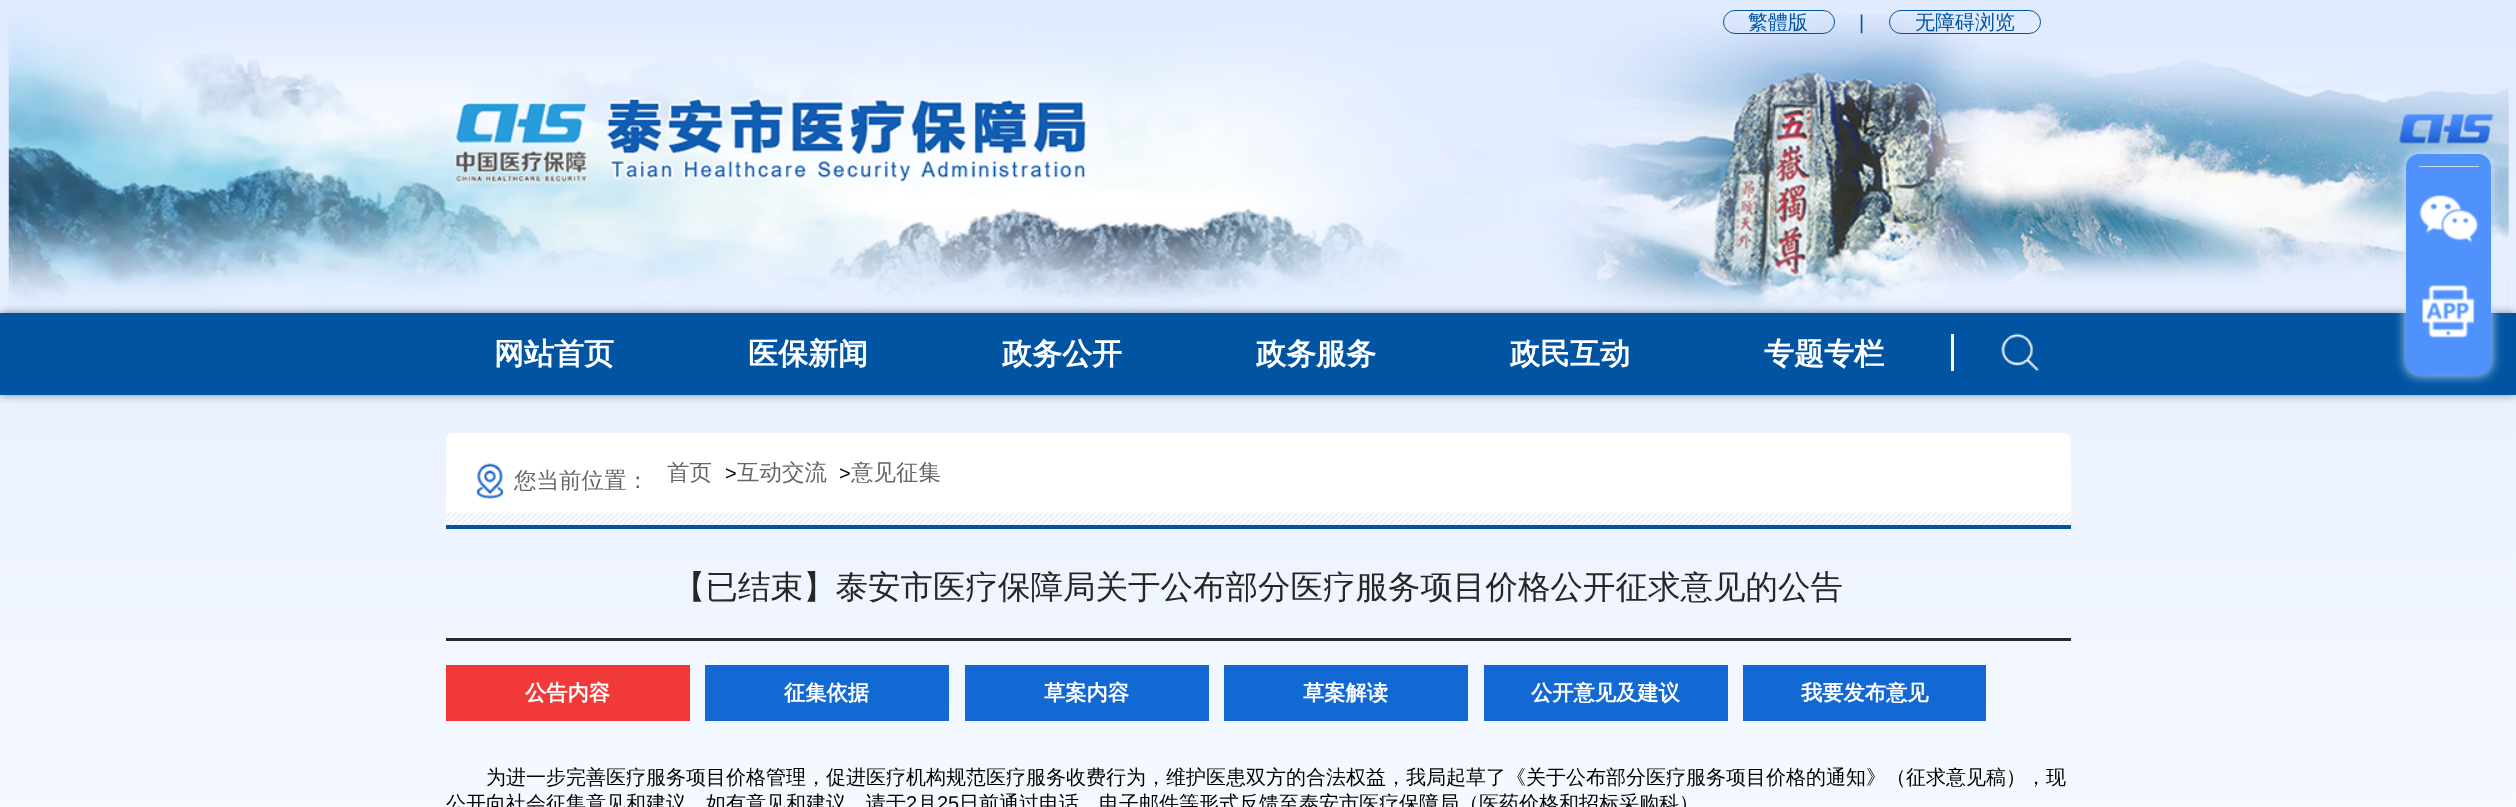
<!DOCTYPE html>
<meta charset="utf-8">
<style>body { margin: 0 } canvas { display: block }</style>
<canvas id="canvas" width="2516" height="807"></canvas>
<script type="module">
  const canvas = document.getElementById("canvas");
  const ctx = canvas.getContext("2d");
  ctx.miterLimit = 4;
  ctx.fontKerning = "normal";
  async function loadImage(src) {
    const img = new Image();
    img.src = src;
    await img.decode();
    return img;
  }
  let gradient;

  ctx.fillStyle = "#ffffff";
  ctx.fillRect(0, 0, 2516, 807);
  gradient = ctx.createLinearGradient(1258, 0, 1258, 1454);
  gradient.addColorStop(0.01, "#e0ebff");
  gradient.addColorStop(0.8, "#ffffff");
  ctx.fillStyle = gradient;
  ctx.fillRect(0, 0, 2516, 807);
  ctx.drawImage(await loadImage("img1.png"), 8, 14, 2501, 299);
  ctx.beginPath();
  ctx.roundRect(1723.5, 10.5, 111, 23, 11.5);
  ctx.strokeStyle = "#0054a1";
  ctx.stroke();
  ctx.font = "500 20px WenQuanYi Zen Hei";
  ctx.fillStyle = "#0054a1";
  ctx.fillText("繁體版", 1748, 29);
  ctx.font = "20px Liberation Sans";
  ctx.fillText("|", 1859, 29);
  ctx.beginPath();
  ctx.roundRect(1889.5, 10.5, 151, 23, 11.5);
  ctx.stroke();
  ctx.font = "500 20px WenQuanYi Zen Hei";
  ctx.fillText("无障碍浏览", 1915, 29);
  ctx.drawImage(await loadImage("img2.png"), 455, 97, 633, 87);
  ctx.fillStyle = "rgba(9, 44, 63, 0.5)";
  ctx.filter = "blur(5px)";
  ctx.beginPath();
  ctx.rect(0, 313, 2516, 82);
  ctx.fill();
  ctx.filter = "none";
  ctx.fillStyle = "#0054a1";
  ctx.fillRect(0, 313, 2516, 82);
  ctx.font = "bold 30px WenQuanYi Zen Hei";
  ctx.fillStyle = "#ffffff";
  ctx.fillText("网站首页", 494, 364);
  ctx.fillText("医保新闻", 748, 364);
  ctx.fillText("政务公开", 1002, 364);
  ctx.fillText("政务服务", 1256, 364);
  ctx.fillText("政民互动", 1510, 364);
  ctx.fillText("专题专栏", 1764, 364);
  ctx.fillRect(1951, 334, 3, 37);
  ctx.drawImage(await loadImage("img3.png"), 2001, 333, 38, 39);
  ctx.fillStyle = "#d5e9ff";
  ctx.filter = "blur(6px)";
  ctx.beginPath();
  ctx.roundRect(2406, 154, 85, 221, 13);
  ctx.fill();
  ctx.filter = "none";
  ctx.fillStyle = "#5092fc";
  ctx.beginPath();
  ctx.roundRect(2406, 154, 85, 221, 13);
  ctx.fill();
  ctx.drawImage(await loadImage("img4.png"), 2399, 113, 95, 31);
  ctx.fillStyle = "#c7d8e8";
  ctx.fillRect(2419, 166, 60, 1);
  ctx.drawImage(await loadImage("img5.png"), 2419, 195, 60, 49);
  ctx.drawImage(await loadImage("img6.png"), 2422, 285, 53, 53);
  ctx.fillStyle = "#ffffff";
  ctx.beginPath();
  ctx.roundRect(446, 433, 1625, 96, [6, 6, 0, 0]);
  ctx.fill();
  ctx.drawImage(await loadImage("img7.png"), 446, 512, 1625, 13);
  ctx.fillStyle = "#0054a1";
  ctx.fillRect(446, 525, 1625, 4);
  ctx.drawImage(await loadImage("img8.png"), 476, 463, 29, 36);
  ctx.font = "500 22.5px WenQuanYi Zen Hei";
  ctx.fillStyle = "#666666";
  ctx.fillText("您当前位置：", 514, 488);
  ctx.fillText("首页", 667, 480);
  ctx.font = "20px Liberation Sans";
  ctx.fillStyle = "#000000";
  ctx.fillText(">", 725, 480);
  ctx.font = "500 22.5px WenQuanYi Zen Hei";
  ctx.fillStyle = "#666666";
  ctx.fillText("互动交流", 737, 480);
  ctx.font = "20px Liberation Sans";
  ctx.fillStyle = "#000000";
  ctx.fillText(">", 839, 480);
  ctx.font = "500 22.5px WenQuanYi Zen Hei";
  ctx.fillStyle = "#666666";
  ctx.fillText("意见征集", 851, 480);
  ctx.fillStyle = "#292929";
  ctx.fillRect(446, 638, 1625, 3);
  ctx.font = "500 32.5px WenQuanYi Zen Hei";
  ctx.fillStyle = "#262626";
  ctx.fillText("【已结束】泰安市医疗保障局关于公布部分医疗服务项目价格公开征求意见的公告", 673, 598);
  ctx.fillStyle = "#f13939";
  ctx.fillRect(446, 665, 244, 56);
  ctx.font = "bold 21.25px WenQuanYi Zen Hei";
  ctx.fillStyle = "#ffffff";
  ctx.fillText("公告内容", 525, 700);
  ctx.fillStyle = "#1269d3";
  ctx.fillRect(705, 665, 244, 56);
  ctx.fillStyle = "#ffffff";
  ctx.fillText("征集依据", 784, 700);
  ctx.fillStyle = "#1269d3";
  ctx.fillRect(965, 665, 244, 56);
  ctx.fillStyle = "#ffffff";
  ctx.fillText("草案内容", 1044, 700);
  ctx.fillStyle = "#1269d3";
  ctx.fillRect(1224, 665, 244, 56);
  ctx.fillStyle = "#ffffff";
  ctx.fillText("草案解读", 1303, 700);
  ctx.fillStyle = "#1269d3";
  ctx.fillRect(1484, 665, 244, 56);
  ctx.fillStyle = "#ffffff";
  ctx.fillText("公开意见及建议", 1531, 700);
  ctx.fillStyle = "#1269d3";
  ctx.fillRect(1743, 665, 243, 56);
  ctx.fillStyle = "#ffffff";
  ctx.fillText("我要发布意见", 1801, 700);
  ctx.font = "500 20px WenQuanYi Zen Hei";
  ctx.fillStyle = "#000000";
  ctx.fillText("为进一步完善医疗服务项目价格管理，促进医疗机构规范医疗服务收费行为，维护医患双方的合法权益，我局起草了《关于公布部分医疗服务项目价格的通知》（征求意见稿），现", 486, 784);
  ctx.fillText("公开向社会征集意见和建议。如有意见和建议，请于", 446, 810);
  ctx.font = "20px Liberation Sans";
  ctx.fillText("2", 906, 810);
  ctx.font = "500 20px WenQuanYi Zen Hei";
  ctx.fillText("月", 917, 810);
  ctx.font = "20px Liberation Sans";
  ctx.fillText("25", 937, 810);
  ctx.font = "500 20px WenQuanYi Zen Hei";
  ctx.fillText("日前通过电话、电子邮件等形式反馈至泰安市医疗保障局（医药价格和招标采购科）", 959, 810);
</script>
